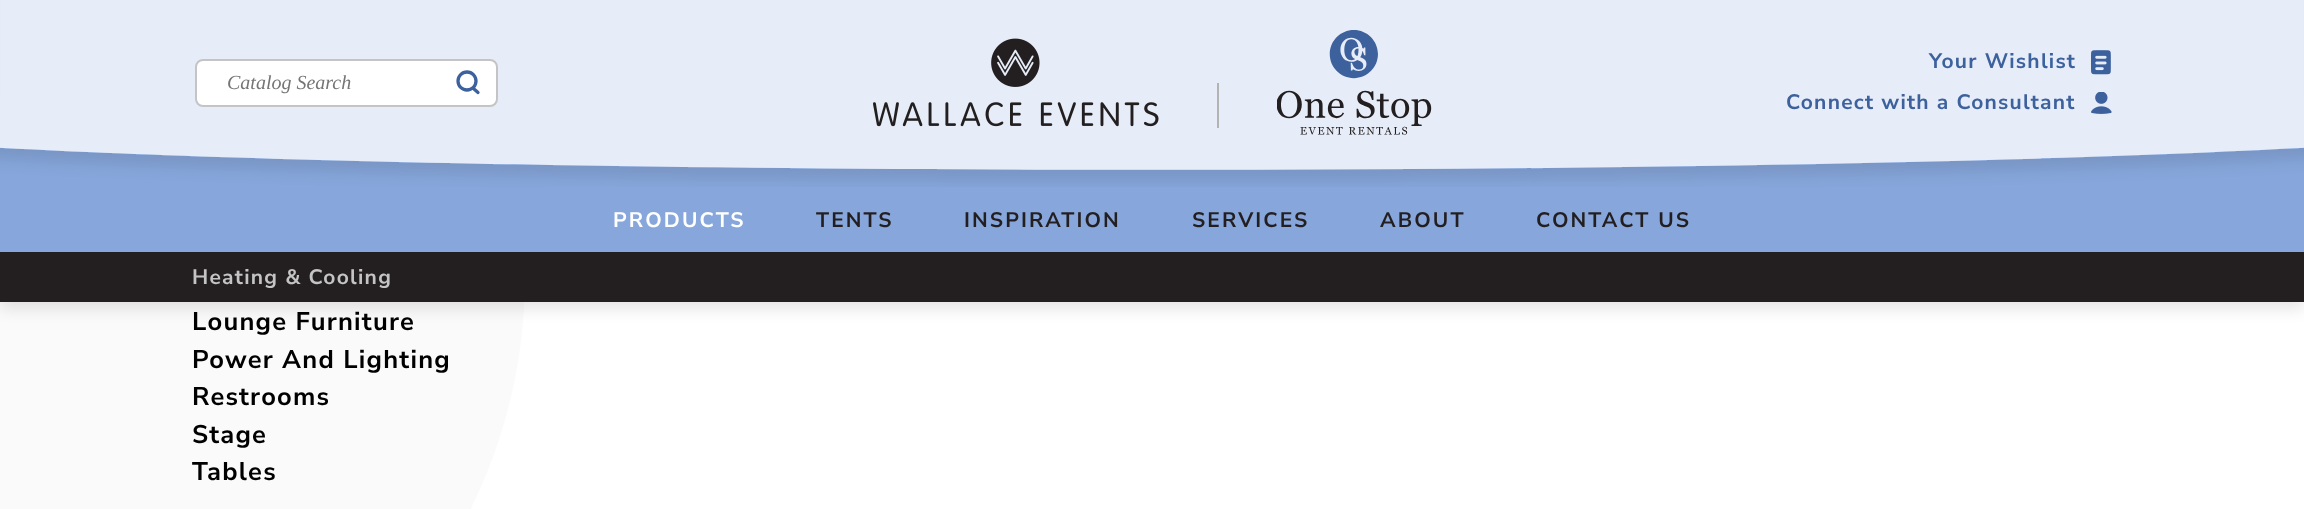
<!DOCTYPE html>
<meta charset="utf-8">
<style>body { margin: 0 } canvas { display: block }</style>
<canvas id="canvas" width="2304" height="509"></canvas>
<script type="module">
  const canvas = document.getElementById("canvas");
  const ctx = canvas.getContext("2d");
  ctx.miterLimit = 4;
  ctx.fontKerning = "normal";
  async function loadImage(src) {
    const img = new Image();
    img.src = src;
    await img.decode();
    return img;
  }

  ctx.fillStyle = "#ffffff";
  ctx.fillRect(0, 0, 2304, 509);
  ctx.fillStyle = "#fafafa";
  ctx.beginPath();
  ctx.moveTo(0, -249);
  ctx.bezierCurveTo(290, -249, 525, -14, 525, 276);
  ctx.bezierCurveTo(525, 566, 290, 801, 0, 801);
  ctx.closePath();
  ctx.fill();
  ctx.fillStyle = "rgba(0, 0, 0, 0.1)";
  ctx.filter = "blur(7.5px)";
  ctx.beginPath();
  ctx.rect(0, 8, 2304, 301);
  ctx.fill();
  ctx.filter = "none";
  ctx.fillStyle = "#87a7dc";
  ctx.fillRect(0, 0, 2304, 252);
  ctx.drawImage(await loadImage("img1.png"), 0, 0, 2304, 187);
  ctx.fillStyle = "#ffffff";
  ctx.beginPath();
  ctx.roundRect(196, 60, 301, 46, 7);
  ctx.fill();
  ctx.strokeStyle = "#c4c4c4";
  ctx.lineWidth = 2;
  ctx.stroke();
  ctx.font = "italic 20px Liberation Serif";
  ctx.fillStyle = "#757575";
  ctx.fillText("Catalog Search", 227, 89);
  ctx.beginPath();
  ctx.arc(467, 81, 9, 0, Math.PI * 2);
  ctx.strokeStyle = "#3d619d";
  ctx.lineWidth = 3.3;
  ctx.stroke();
  ctx.beginPath();
  ctx.moveTo(478, 92.5);
  ctx.lineTo(474, 89);
  ctx.lineCap = "round";
  ctx.stroke();
  ctx.drawImage(await loadImage("img2.png"), 873, 38, 286, 89);
  ctx.fillStyle = "#b3b3b3";
  ctx.fillRect(1217, 83, 2, 45);
  ctx.drawImage(await loadImage("img3.png"), 1277, 30, 155, 105);
  ctx.letterSpacing = "1.25px";
  ctx.font = "bold 21px Nunito Sans";
  ctx.fillStyle = "#3d619d";
  ctx.fillText("Your Wishlist", 1929, 68);
  ctx.drawImage(await loadImage("img4.png"), 2091, 50, 20, 25);
  ctx.fillText("Connect with a Consultant", 1786, 109);
  ctx.drawImage(await loadImage("img5.png"), 2091, 92, 21, 22);
  ctx.letterSpacing = "2.1px";
  ctx.fillStyle = "#ffffff";
  ctx.fillText("PRODUCTS", 613, 227);
  ctx.fillStyle = "#231f20";
  ctx.fillText("TENTS", 816, 227);
  ctx.fillText("INSPIRATION", 964, 227);
  ctx.fillText("SERVICES", 1192, 227);
  ctx.fillText("ABOUT", 1380, 227);
  ctx.fillText("CONTACT US", 1536, 227);
  ctx.fillRect(0, 252, 2304, 50);
  ctx.letterSpacing = "1.25px";
  ctx.fillStyle = "#c4c4c4";
  ctx.fillText("Heating & Cooling", 192, 284);
  ctx.font = "bold 25.5px Nunito Sans";
  ctx.fillStyle = "#000000";
  ctx.fillText("Lounge Furniture", 192, 330);
  ctx.fillText("Power And Lighting", 192, 368);
  ctx.fillText("Restrooms", 192, 405);
  ctx.fillText("Stage", 192, 443);
  ctx.fillText("Tables", 192, 480);
</script>
